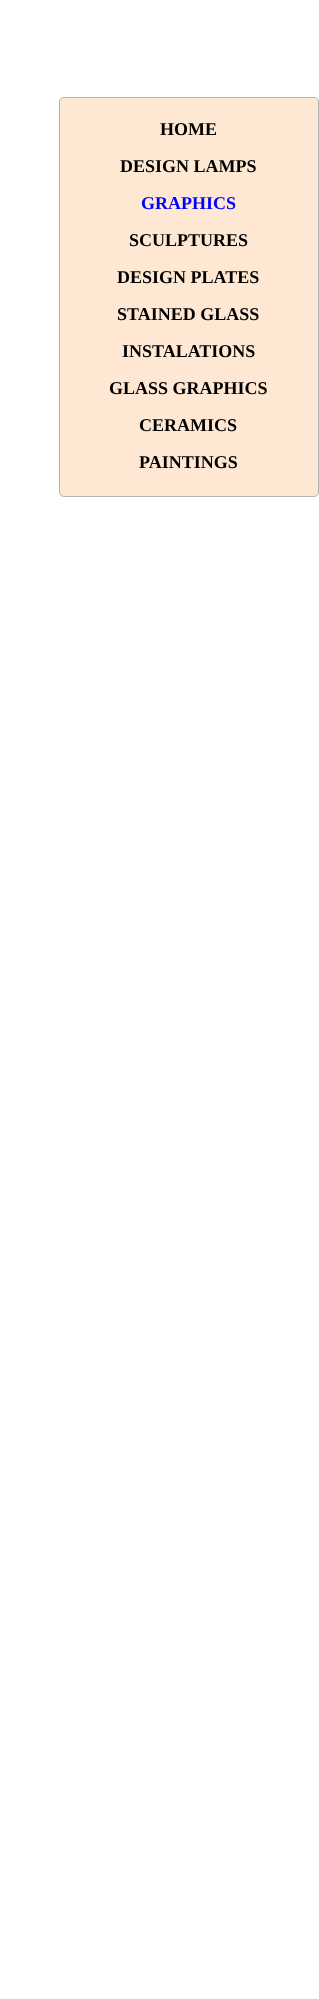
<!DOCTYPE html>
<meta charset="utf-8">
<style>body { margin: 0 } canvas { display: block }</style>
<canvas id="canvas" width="319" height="1999"></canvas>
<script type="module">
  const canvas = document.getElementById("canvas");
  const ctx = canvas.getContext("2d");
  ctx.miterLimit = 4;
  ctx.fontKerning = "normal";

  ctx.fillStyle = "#ffffff";
  ctx.fillRect(0, 0, 319, 1999);
  ctx.fillStyle = "#ffe8d3";
  ctx.beginPath();
  ctx.roundRect(59.5, 97.5, 259, 399, 4.5);
  ctx.fill();
  ctx.strokeStyle = "#a9b4bb";
  ctx.stroke();
  ctx.font = "bold 18px Liberation Serif";
  ctx.fillStyle = "#000000";
  ctx.fillText("HOME", 160, 135);
  ctx.fillText("DESIGN LAMPS", 120, 172);
  ctx.fillStyle = "#0000ff";
  ctx.fillText("GRAPHICS", 141, 209);
  ctx.fillStyle = "#000000";
  ctx.fillText("SCULPTURES", 129, 246);
  ctx.fillText("DESIGN PLATES", 117, 283);
  ctx.fillText("STAINED GLASS", 117, 320);
  ctx.fillText("INSTALATIONS", 122, 357);
  ctx.fillText("GLASS GRAPHICS", 109, 394);
  ctx.fillText("CERAMICS", 139, 431);
  ctx.fillText("PAINTINGS", 139, 468);
</script>
